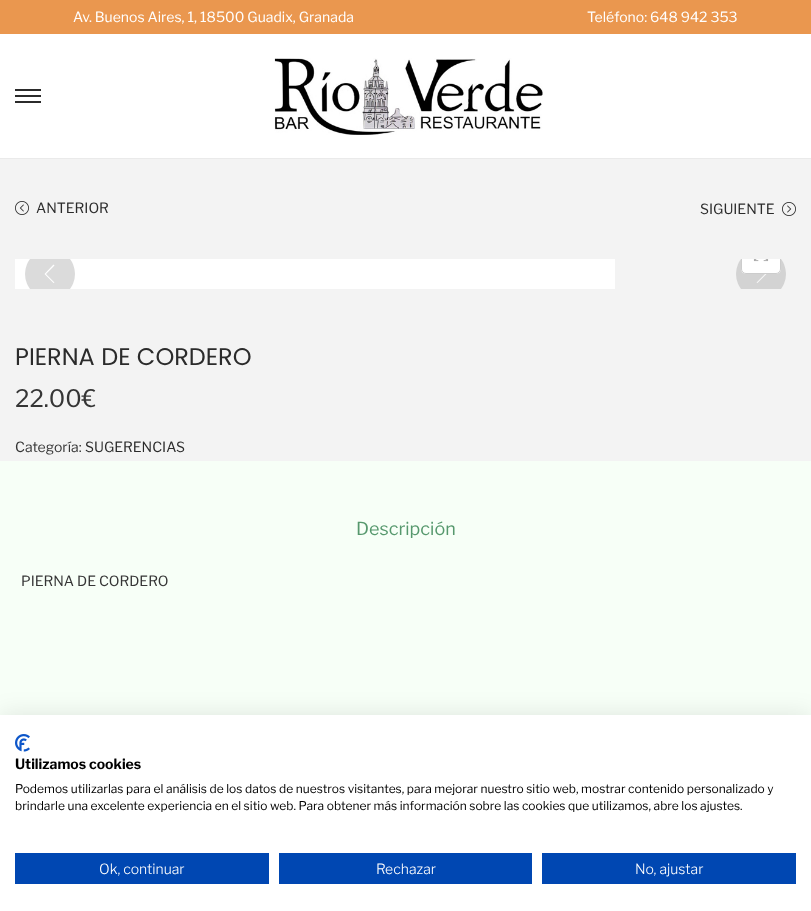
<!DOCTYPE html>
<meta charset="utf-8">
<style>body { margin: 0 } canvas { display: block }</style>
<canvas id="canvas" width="811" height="911"></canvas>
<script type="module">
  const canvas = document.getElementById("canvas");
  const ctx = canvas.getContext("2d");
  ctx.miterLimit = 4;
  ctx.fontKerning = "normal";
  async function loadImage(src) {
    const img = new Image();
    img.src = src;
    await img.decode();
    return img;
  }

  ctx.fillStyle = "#f7fff7";
  ctx.fillRect(0, 0, 811, 911);
  ctx.fillStyle = "#ea974f";
  ctx.fillRect(0, 0, 811, 34);
  ctx.font = "14px Libre Franklin";
  ctx.fillStyle = "#ffffff";
  ctx.fillText("Av. Buenos Aires, 1, 18500 Guadix, Granada", 73, 22);
  ctx.fillText("Teléfono: 648 942 353", 587, 22);
  ctx.fillRect(0, 34, 811, 124);
  ctx.fillStyle = "#eaeaea";
  ctx.fillRect(0, 158, 811, 1);
  ctx.fillStyle = "#2b2b2b";
  ctx.fillRect(15, 95, 26, 2);
  ctx.fillRect(15, 89, 26, 2);
  ctx.fillRect(15, 101, 26, 2);
  ctx.drawImage(await loadImage("img1.png"), 274, 58, 269, 77);
  ctx.fillStyle = "#f3f3f3";
  ctx.fillRect(0, 259, 811, 202);
  ctx.fillStyle = "#ffffff";
  ctx.fillRect(15, 259, 600, 30);
  ctx.save();
  ctx.beginPath();
  ctx.rect(15, 259, 781, 30);
  ctx.clip();
  ctx.fillStyle = "#dbdbdb";
  ctx.beginPath();
  ctx.arc(50, 274, 25, 0, Math.PI * 2);
  ctx.fill();
  ctx.fillStyle = "#d3d3d3";
  ctx.beginPath();
  ctx.arc(761, 274, 25, 0, Math.PI * 2);
  ctx.fill();
  ctx.restore();
  ctx.fillStyle = "#f3f3f3";
  ctx.fillRect(0, 159, 811, 100);
  ctx.drawImage(await loadImage("img2.png"), 15, 201, 14, 14);
  ctx.fillStyle = "#2b2b2b";
  ctx.fillText("ANTERIOR", 36, 213);
  ctx.fillText("SIGUIENTE", 700, 214);
  ctx.drawImage(await loadImage("img3.png"), 782, 202, 14, 14);
  ctx.fillStyle = "#f7f7f7";
  ctx.beginPath();
  ctx.moveTo(766.5, 274);
  ctx.lineTo(757.5, 283);
  ctx.lineTo(756.5, 282.5);
  ctx.lineTo(765, 274);
  ctx.lineTo(756.5, 265.5);
  ctx.lineTo(757.5, 264.5);
  ctx.closePath();
  ctx.fill();
  ctx.fillStyle = "#ffffff";
  ctx.beginPath();
  ctx.roundRect(741, 259, 40, 15, [0, 0, 5, 5]);
  ctx.fill();
  ctx.save();
  ctx.beginPath();
  ctx.rect(15, 259, 781, 30);
  ctx.clip();
  ctx.beginPath();
  ctx.roundRect(741.5, 234.5, 39, 39, 4.5);
  ctx.strokeStyle = "#cccccc";
  ctx.stroke();
  ctx.restore();
  ctx.drawImage(await loadImage("img4.png"), 753, 259, 16, 3);
  ctx.beginPath();
  ctx.moveTo(46, 274);
  ctx.lineTo(54.5, 282.5);
  ctx.lineTo(53.5, 283);
  ctx.lineTo(44.5, 274);
  ctx.lineTo(53.5, 264.5);
  ctx.lineTo(54.5, 265.5);
  ctx.closePath();
  ctx.fill();
  ctx.font = "24px Poppins";
  ctx.fillStyle = "#2b2b2b";
  ctx.fillText("PIERNA DE CORDERO", 15, 365);
  ctx.font = "24px Libre Franklin";
  ctx.fillStyle = "#353535";
  ctx.fillText("22.00€", 15, 407);
  ctx.font = "14px Libre Franklin";
  ctx.fillText("Categoría:", 15, 452);
  ctx.fillStyle = "#2b2b2b";
  ctx.fillText("SUGERENCIAS", 85, 452);
  ctx.font = "18px Libre Franklin";
  ctx.fillStyle = "#56986d";
  ctx.fillText("Descripción", 356, 535);
  ctx.font = "14px Libre Franklin";
  ctx.fillStyle = "#353535";
  ctx.fillText("PIERNA DE CORDERO", 21, 586);
  ctx.fillStyle = "rgba(0, 0, 0, 0.1)";
  ctx.filter = "blur(12px)";
  ctx.beginPath();
  ctx.rect(0, 715, 811, 196);
  ctx.fill();
  ctx.filter = "none";
  ctx.fillStyle = "#ffffff";
  ctx.fillRect(0, 715, 811, 196);
  ctx.drawImage(await loadImage("img5.png"), 15, 734, 15, 18);
  ctx.font = "bold 14px Libre Franklin";
  ctx.fillStyle = "#000000";
  ctx.fillText("Utilizamos cookies", 15, 769);
  ctx.font = "12px Libre Franklin";
  ctx.fillText("Podemos utilizarlas para el análisis de los datos de nuestros visitantes, para mejorar nuestro sitio web, mostrar contenido personalizado y", 15, 793);
  ctx.fillText("brindarle una excelente experiencia en el sitio web. Para obtener más información sobre las cookies que utilizamos, abre los ajustes.", 15, 810);
  ctx.fillStyle = "#0047b2";
  ctx.fillRect(15, 853, 254, 31);
  ctx.font = "300 14px Libre Franklin";
  ctx.fillStyle = "#ffffff";
  ctx.fillText("Ok, continuar", 99, 874);
  ctx.fillStyle = "#0047b2";
  ctx.fillRect(279, 853, 253, 31);
  ctx.fillStyle = "#ffffff";
  ctx.fillText("Rechazar", 376, 874);
  ctx.fillStyle = "#0047b2";
  ctx.fillRect(542, 853, 254, 31);
  ctx.fillStyle = "#ffffff";
  ctx.fillText("No, ajustar", 635, 874);
</script>
